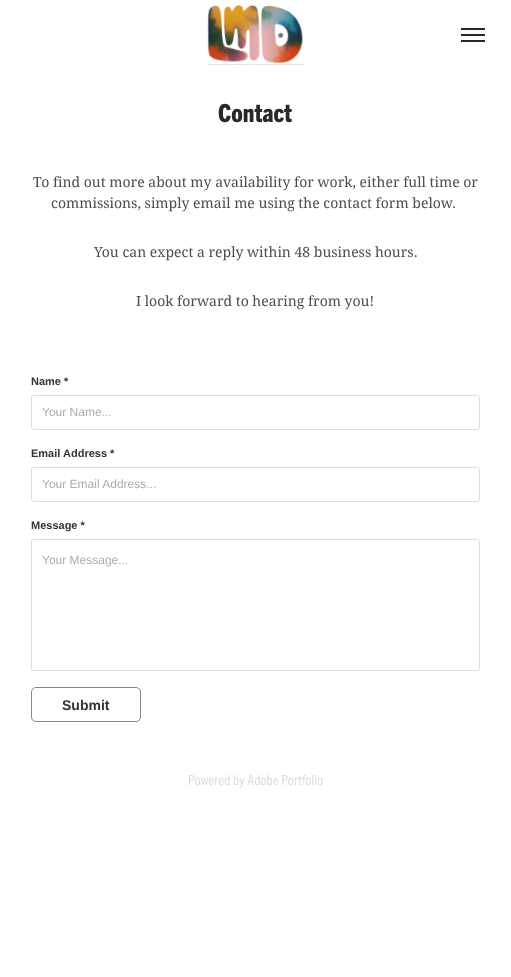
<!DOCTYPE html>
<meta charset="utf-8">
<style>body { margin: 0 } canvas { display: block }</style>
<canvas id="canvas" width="511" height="977"></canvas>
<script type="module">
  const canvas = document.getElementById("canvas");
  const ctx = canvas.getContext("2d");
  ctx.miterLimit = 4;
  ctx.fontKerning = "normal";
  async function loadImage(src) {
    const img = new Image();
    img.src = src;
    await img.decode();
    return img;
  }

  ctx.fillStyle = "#ffffff";
  ctx.fillRect(0, 0, 511, 977);
  ctx.drawImage(await loadImage("img1.png"), 207, 5, 97, 60);
  ctx.fillStyle = "#282828";
  ctx.fillRect(461, 28, 24, 2);
  ctx.fillRect(461, 34, 24, 2);
  ctx.fillRect(461, 40, 24, 2);
  ctx.font = "800 25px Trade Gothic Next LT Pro";
  ctx.fillText("Contact", 218, 122);
  ctx.font = "14px Droid Serif";
  ctx.fillStyle = "#4d4d4d";
  ctx.fillText("To find out more about my availability for work, either full time or", 33, 187);
  ctx.fillText("commissions, simply email me using the contact form below.", 51, 208);
  ctx.fillText("You can expect a reply within 48 business hours.", 94, 257);
  ctx.fillText("I look forward to hearing from you!", 136, 306);
  ctx.font = "bold 11px Liberation Sans";
  ctx.fillStyle = "#333333";
  ctx.fillText("Name *", 31, 385);
  ctx.beginPath();
  ctx.roundRect(31.5, 395.5, 448, 34, 2.5);
  ctx.strokeStyle = "#dddddd";
  ctx.stroke();
  ctx.font = "12px Liberation Sans";
  ctx.fillStyle = "#adadad";
  ctx.fillText("Your Name...", 42, 416);
  ctx.font = "bold 11px Liberation Sans";
  ctx.fillStyle = "#333333";
  ctx.fillText("Email Address *", 31, 457);
  ctx.beginPath();
  ctx.roundRect(31.5, 467.5, 448, 34, 2.5);
  ctx.stroke();
  ctx.font = "12px Liberation Sans";
  ctx.fillStyle = "#adadad";
  ctx.fillText("Your Email Address...", 42, 488);
  ctx.font = "bold 11px Liberation Sans";
  ctx.fillStyle = "#333333";
  ctx.fillText("Message *", 31, 529);
  ctx.beginPath();
  ctx.roundRect(31.5, 539.5, 448, 131, 2.5);
  ctx.stroke();
  ctx.font = "12px Liberation Sans";
  ctx.fillStyle = "#adadad";
  ctx.fillText("Your Message...", 42, 564);
  ctx.beginPath();
  ctx.roundRect(31.5, 687.5, 109, 34, 4.5);
  ctx.strokeStyle = "#858585";
  ctx.stroke();
  ctx.font = "bold 14px Liberation Sans";
  ctx.fillStyle = "#333333";
  ctx.fillText("Submit", 62, 710);
  ctx.font = "14px Trade Gothic Next LT Pro";
  ctx.fillStyle = "#dddddd";
  ctx.fillText("Powered by Adobe Portfolio", 188, 785);
</script>
